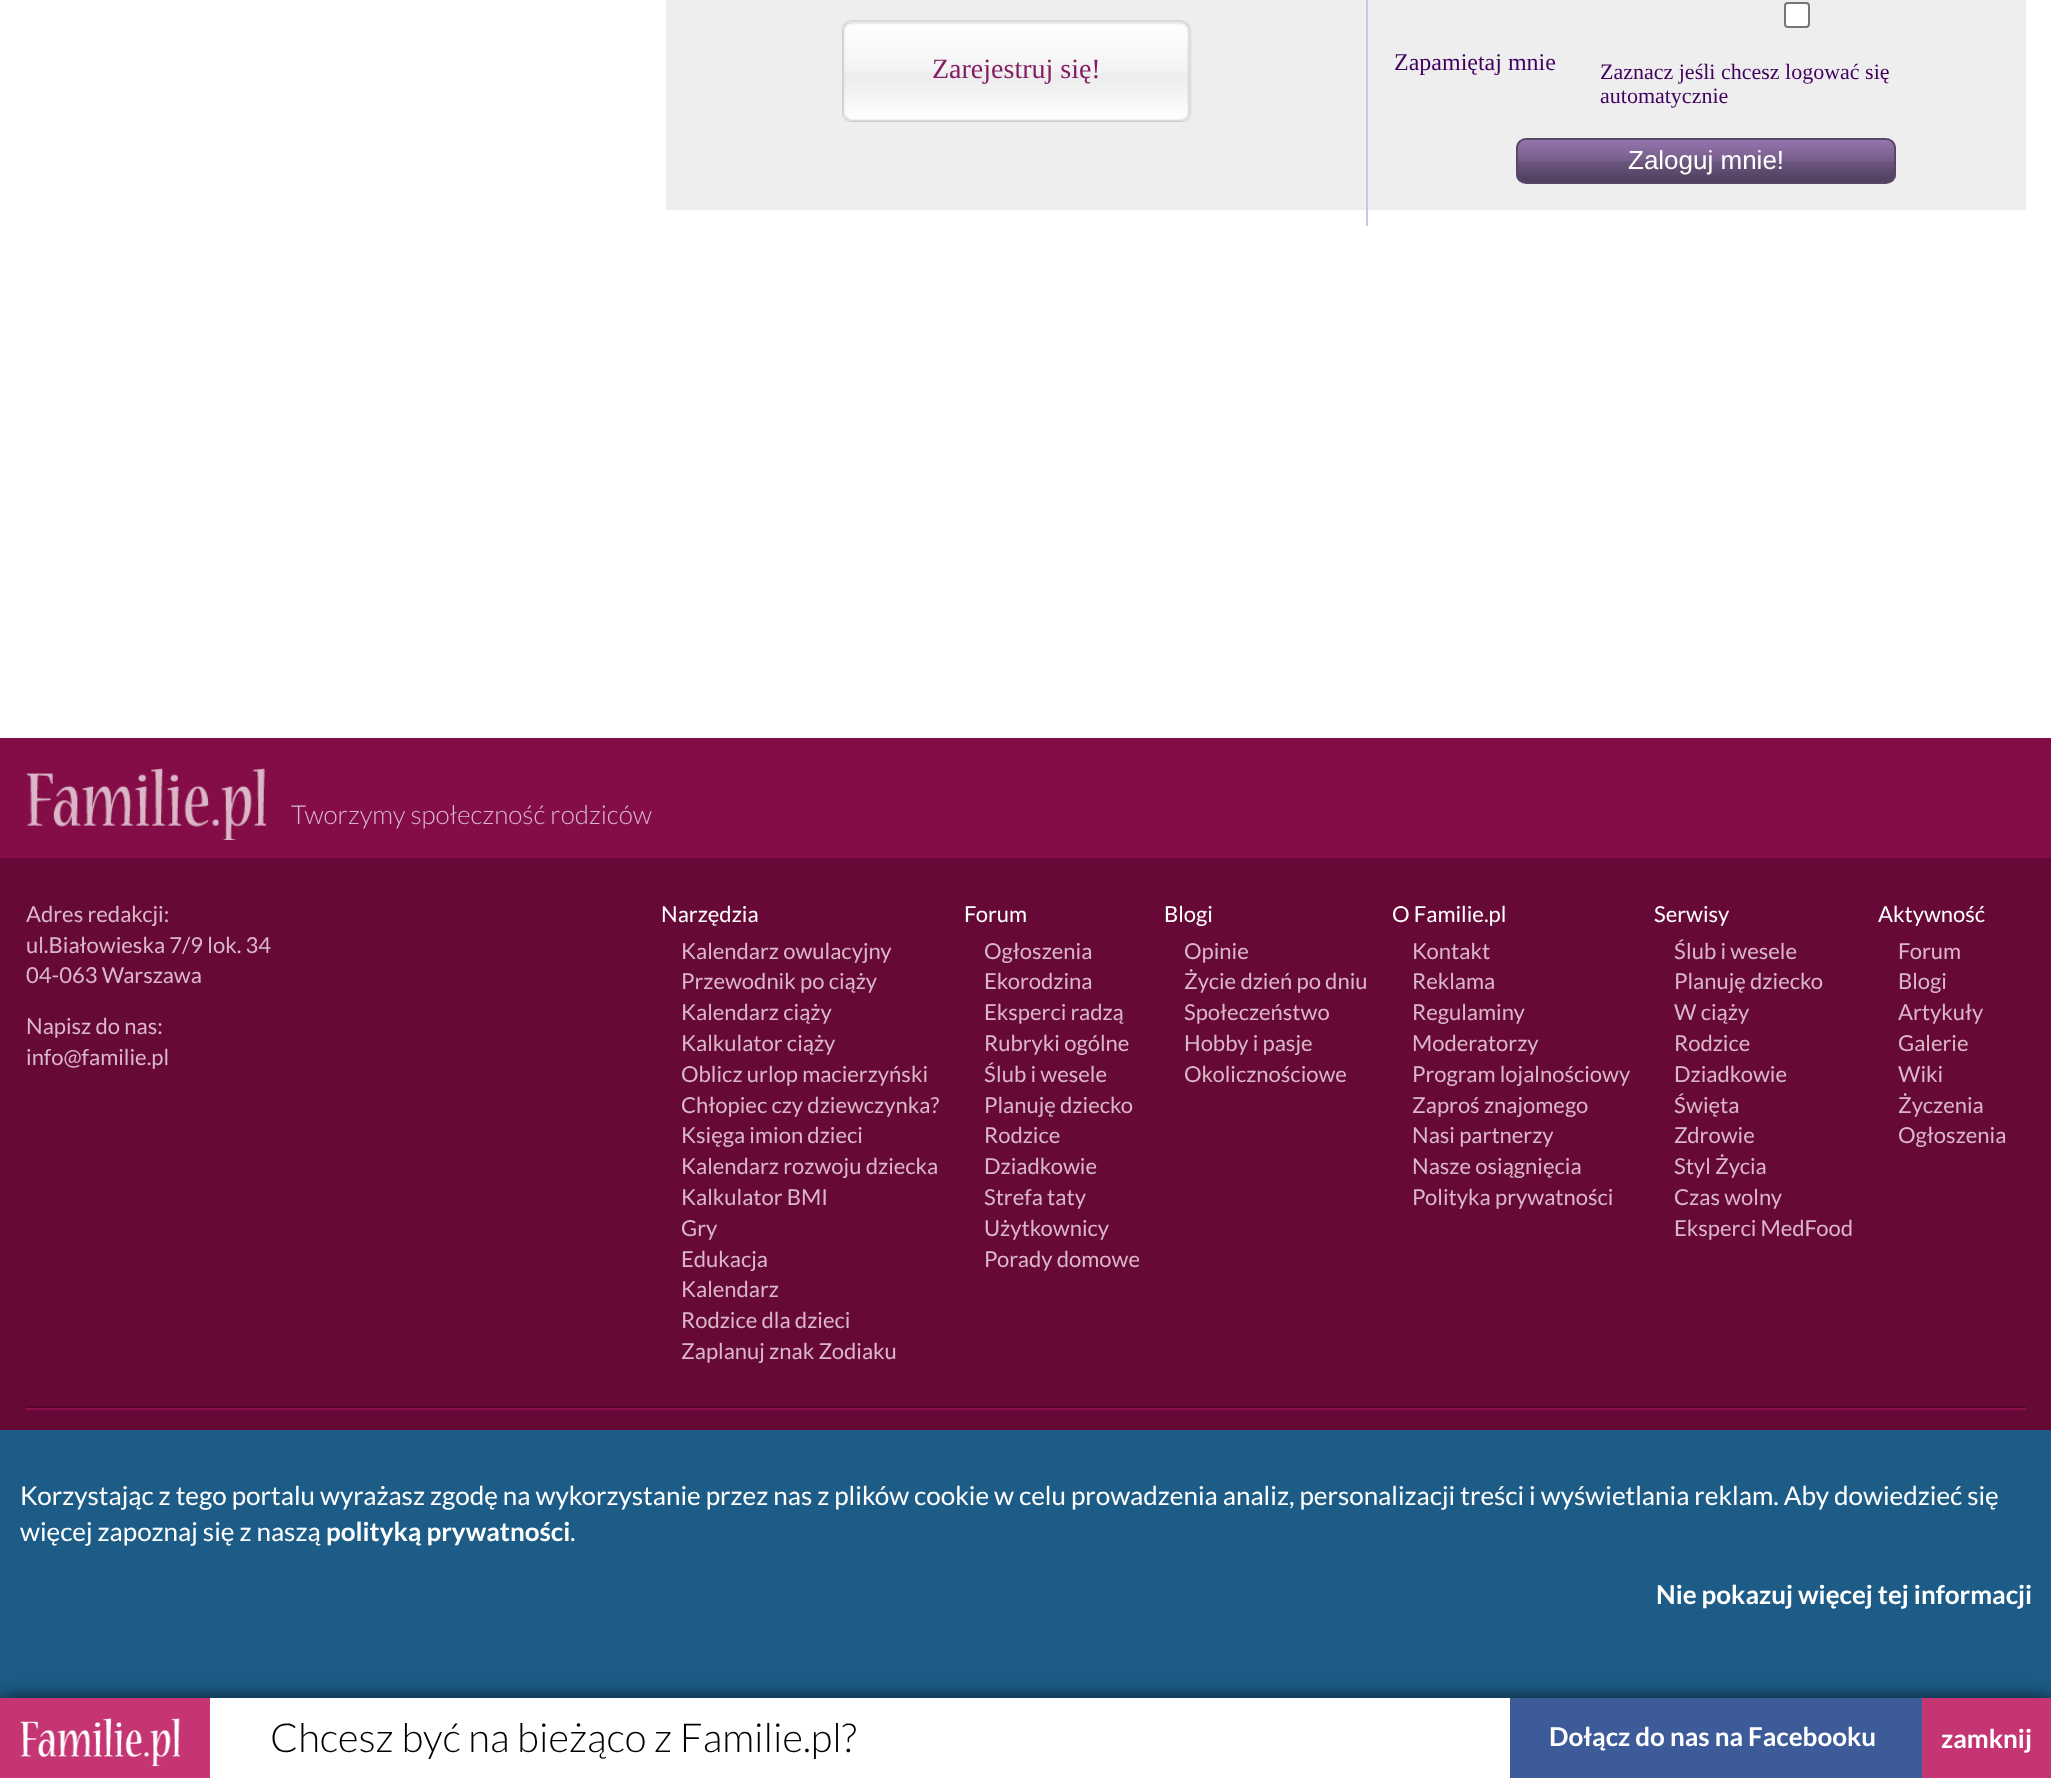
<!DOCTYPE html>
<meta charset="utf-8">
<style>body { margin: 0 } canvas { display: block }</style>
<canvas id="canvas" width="2051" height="1778"></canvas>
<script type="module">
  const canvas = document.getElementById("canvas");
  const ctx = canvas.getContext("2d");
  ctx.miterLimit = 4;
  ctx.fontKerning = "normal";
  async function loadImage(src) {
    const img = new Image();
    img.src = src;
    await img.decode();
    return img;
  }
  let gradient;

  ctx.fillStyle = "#ffffff";
  ctx.fillRect(0, 0, 2051, 1778);
  ctx.fillStyle = "#eeeeee";
  ctx.fillRect(666, 0, 1360, 210);
  ctx.drawImage(await loadImage("img1.png"), 842, 20, 350, 102);
  ctx.font = "28px Liberation Serif";
  ctx.fillStyle = "#851d63";
  ctx.fillText("Zarejestruj się!", 932, 78);
  ctx.fillStyle = "#c1cbdb";
  ctx.fillRect(1366, 0, 2, 226);
  ctx.font = "24px Liberation Serif";
  ctx.fillStyle = "#41015f";
  ctx.fillText("Zapamiętaj mnie", 1394, 70);
  ctx.fillStyle = "#ffffff";
  ctx.beginPath();
  ctx.roundRect(1785, 3, 24, 24, 3);
  ctx.fill();
  ctx.strokeStyle = "#767676";
  ctx.lineWidth = 2;
  ctx.stroke();
  ctx.font = "22px Liberation Serif";
  ctx.fillStyle = "#41015f";
  ctx.fillText("Zaznacz jeśli chcesz logować się", 1600, 79);
  ctx.fillText("automatycznie", 1600, 103);
  ctx.save();
  ctx.beginPath();
  ctx.roundRect(1516, 138, 380, 46, 10);
  ctx.clip();
  gradient = ctx.createLinearGradient(1518, 140, 1518, 182);
  gradient.addColorStop(0, "#9475ad");
  gradient.addColorStop(0.5, "#765d89");
  gradient.addColorStop(0.51, "#6d567f");
  gradient.addColorStop(1, "#4f3e5c");
  ctx.fillStyle = gradient;
  ctx.fillRect(1516, 140, 380, 42);
  ctx.restore();
  ctx.beginPath();
  ctx.roundRect(1517, 139, 378, 44, 9);
  ctx.strokeStyle = "#594768";
  ctx.stroke();
  ctx.font = "26px Liberation Sans";
  ctx.fillStyle = "#ffffff";
  ctx.fillText("Zaloguj mnie!", 1628, 169);
  ctx.fillStyle = "#840d47";
  ctx.fillRect(0, 738, 2051, 120);
  ctx.drawImage(await loadImage("img2.png"), 26, 768, 240, 72);
  ctx.font = "300 26px Lato";
  ctx.fillStyle = "#dab6c8";
  ctx.fillText("Tworzymy społeczność rodziców", 291, 824);
  ctx.fillStyle = "#660936";
  ctx.fillRect(0, 858, 2051, 572);
  ctx.font = "22px Lato";
  ctx.fillStyle = "#dab6c8";
  ctx.fillText("Adres redakcji:", 26, 922);
  ctx.fillText("ul.Białowieska 7/9 lok. 34", 26, 953);
  ctx.fillText("04-063 Warszawa", 26, 983);
  ctx.fillText("Napisz do nas:", 26, 1034);
  ctx.fillText("info@familie.pl", 26, 1065);
  ctx.fillStyle = "#ffffff";
  ctx.fillText("Narzędzia", 661, 922);
  ctx.fillStyle = "#dab6c8";
  ctx.fillText("Kalendarz owulacyjny", 681, 959);
  ctx.fillText("Przewodnik po ciąży", 681, 989);
  ctx.fillText("Kalendarz ciąży", 681, 1020);
  ctx.fillText("Kalkulator ciąży", 681, 1051);
  ctx.fillText("Oblicz urlop macierzyński", 681, 1082);
  ctx.fillText("Chłopiec czy dziewczynka?", 681, 1113);
  ctx.fillText("Księga imion dzieci", 681, 1143);
  ctx.fillText("Kalendarz rozwoju dziecka", 681, 1174);
  ctx.fillText("Kalkulator BMI", 681, 1205);
  ctx.fillText("Gry", 681, 1236);
  ctx.fillText("Edukacja", 681, 1267);
  ctx.fillText("Kalendarz", 681, 1297);
  ctx.fillText("Rodzice dla dzieci", 681, 1328);
  ctx.fillText("Zaplanuj znak Zodiaku", 681, 1359);
  ctx.fillStyle = "#ffffff";
  ctx.fillText("Forum", 964, 922);
  ctx.fillStyle = "#dab6c8";
  ctx.fillText("Ogłoszenia", 984, 959);
  ctx.fillText("Ekorodzina", 984, 989);
  ctx.fillText("Eksperci radzą", 984, 1020);
  ctx.fillText("Rubryki ogólne", 984, 1051);
  ctx.fillText("Ślub i wesele", 984, 1082);
  ctx.fillText("Planuję dziecko", 984, 1113);
  ctx.fillText("Rodzice", 984, 1143);
  ctx.fillText("Dziadkowie", 984, 1174);
  ctx.fillText("Strefa taty", 984, 1205);
  ctx.fillText("Użytkownicy", 984, 1236);
  ctx.fillText("Porady domowe", 984, 1267);
  ctx.fillStyle = "#ffffff";
  ctx.fillText("Blogi", 1164, 922);
  ctx.fillStyle = "#dab6c8";
  ctx.fillText("Opinie", 1184, 959);
  ctx.fillText("Życie dzień po dniu", 1184, 989);
  ctx.fillText("Społeczeństwo", 1184, 1020);
  ctx.fillText("Hobby i pasje", 1184, 1051);
  ctx.fillText("Okolicznościowe", 1184, 1082);
  ctx.fillStyle = "#ffffff";
  ctx.fillText("O Familie.pl", 1392, 922);
  ctx.fillStyle = "#dab6c8";
  ctx.fillText("Kontakt", 1412, 959);
  ctx.fillText("Reklama", 1412, 989);
  ctx.fillText("Regulaminy", 1412, 1020);
  ctx.fillText("Moderatorzy", 1412, 1051);
  ctx.fillText("Program lojalnościowy", 1412, 1082);
  ctx.fillText("Zaproś znajomego", 1412, 1113);
  ctx.fillText("Nasi partnerzy", 1412, 1143);
  ctx.fillText("Nasze osiągnięcia", 1412, 1174);
  ctx.fillText("Polityka prywatności", 1412, 1205);
  ctx.fillStyle = "#ffffff";
  ctx.fillText("Serwisy", 1654, 922);
  ctx.fillStyle = "#dab6c8";
  ctx.fillText("Ślub i wesele", 1674, 959);
  ctx.fillText("Planuję dziecko", 1674, 989);
  ctx.fillText("W ciąży", 1674, 1020);
  ctx.fillText("Rodzice", 1674, 1051);
  ctx.fillText("Dziadkowie", 1674, 1082);
  ctx.fillText("Święta", 1674, 1113);
  ctx.fillText("Zdrowie", 1674, 1143);
  ctx.fillText("Styl Życia", 1674, 1174);
  ctx.fillText("Czas wolny", 1674, 1205);
  ctx.fillText("Eksperci MedFood", 1674, 1236);
  ctx.fillStyle = "#ffffff";
  ctx.fillText("Aktywność", 1878, 922);
  ctx.fillStyle = "#dab6c8";
  ctx.fillText("Forum", 1898, 959);
  ctx.fillText("Blogi", 1898, 989);
  ctx.fillText("Artykuły", 1898, 1020);
  ctx.fillText("Galerie", 1898, 1051);
  ctx.fillText("Wiki", 1898, 1082);
  ctx.fillText("Życzenia", 1898, 1113);
  ctx.fillText("Ogłoszenia", 1898, 1143);
  ctx.fillStyle = "#56062d";
  ctx.fillRect(26, 1406, 2000, 2);
  ctx.fillStyle = "#8c0f4b";
  ctx.fillRect(26, 1408, 2000, 2);
  ctx.fillStyle = "#1d5c87";
  ctx.fillRect(0, 1430, 2051, 268);
  ctx.font = "26px Lato";
  ctx.fillStyle = "#ffffff";
  ctx.fillText("Korzystając z tego portalu wyrażasz zgodę na wykorzystanie przez nas z plików cookie w celu prowadzenia analiz, personalizacji treści i wyświetlania reklam. Aby dowiedzieć się", 20, 1505);
  ctx.fillText("więcej zapoznaj się z naszą", 20, 1541);
  ctx.font = "bold 26px Lato";
  ctx.fillText("polityką prywatności", 326, 1541);
  ctx.font = "26px Lato";
  ctx.fillText(".", 570, 1541);
  ctx.font = "bold 26px Lato";
  ctx.fillText("Nie pokazuj więcej tej informacji", 1656, 1604);
  ctx.fillStyle = "rgba(0, 0, 0, 0.7)";
  ctx.filter = "blur(10px)";
  ctx.beginPath();
  ctx.rect(0, 1698, 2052, 80);
  ctx.fill();
  ctx.filter = "none";
  ctx.fillStyle = "#ffffff";
  ctx.fillRect(210, 1698, 1300, 80);
  ctx.fillStyle = "#c53573";
  ctx.fillRect(0, 1698, 210, 80);
  ctx.drawImage(await loadImage("img3.png"), 20, 1718, 160, 48);
  ctx.font = "300 40px Lato";
  ctx.fillStyle = "#000000";
  ctx.fillText("Chcesz być na bieżąco z Familie.pl?", 270, 1752);
  ctx.fillStyle = "#3d5a99";
  ctx.fillRect(1510, 1698, 412, 80);
  ctx.font = "bold 26px Lato";
  ctx.fillStyle = "#ffffff";
  ctx.fillText("Dołącz do nas na Facebooku", 1549, 1746);
  ctx.fillStyle = "#c53573";
  ctx.fillRect(1922, 1698, 129, 80);
  ctx.fillStyle = "#ffffff";
  ctx.fillText("zamknij", 1941, 1748);
</script>
